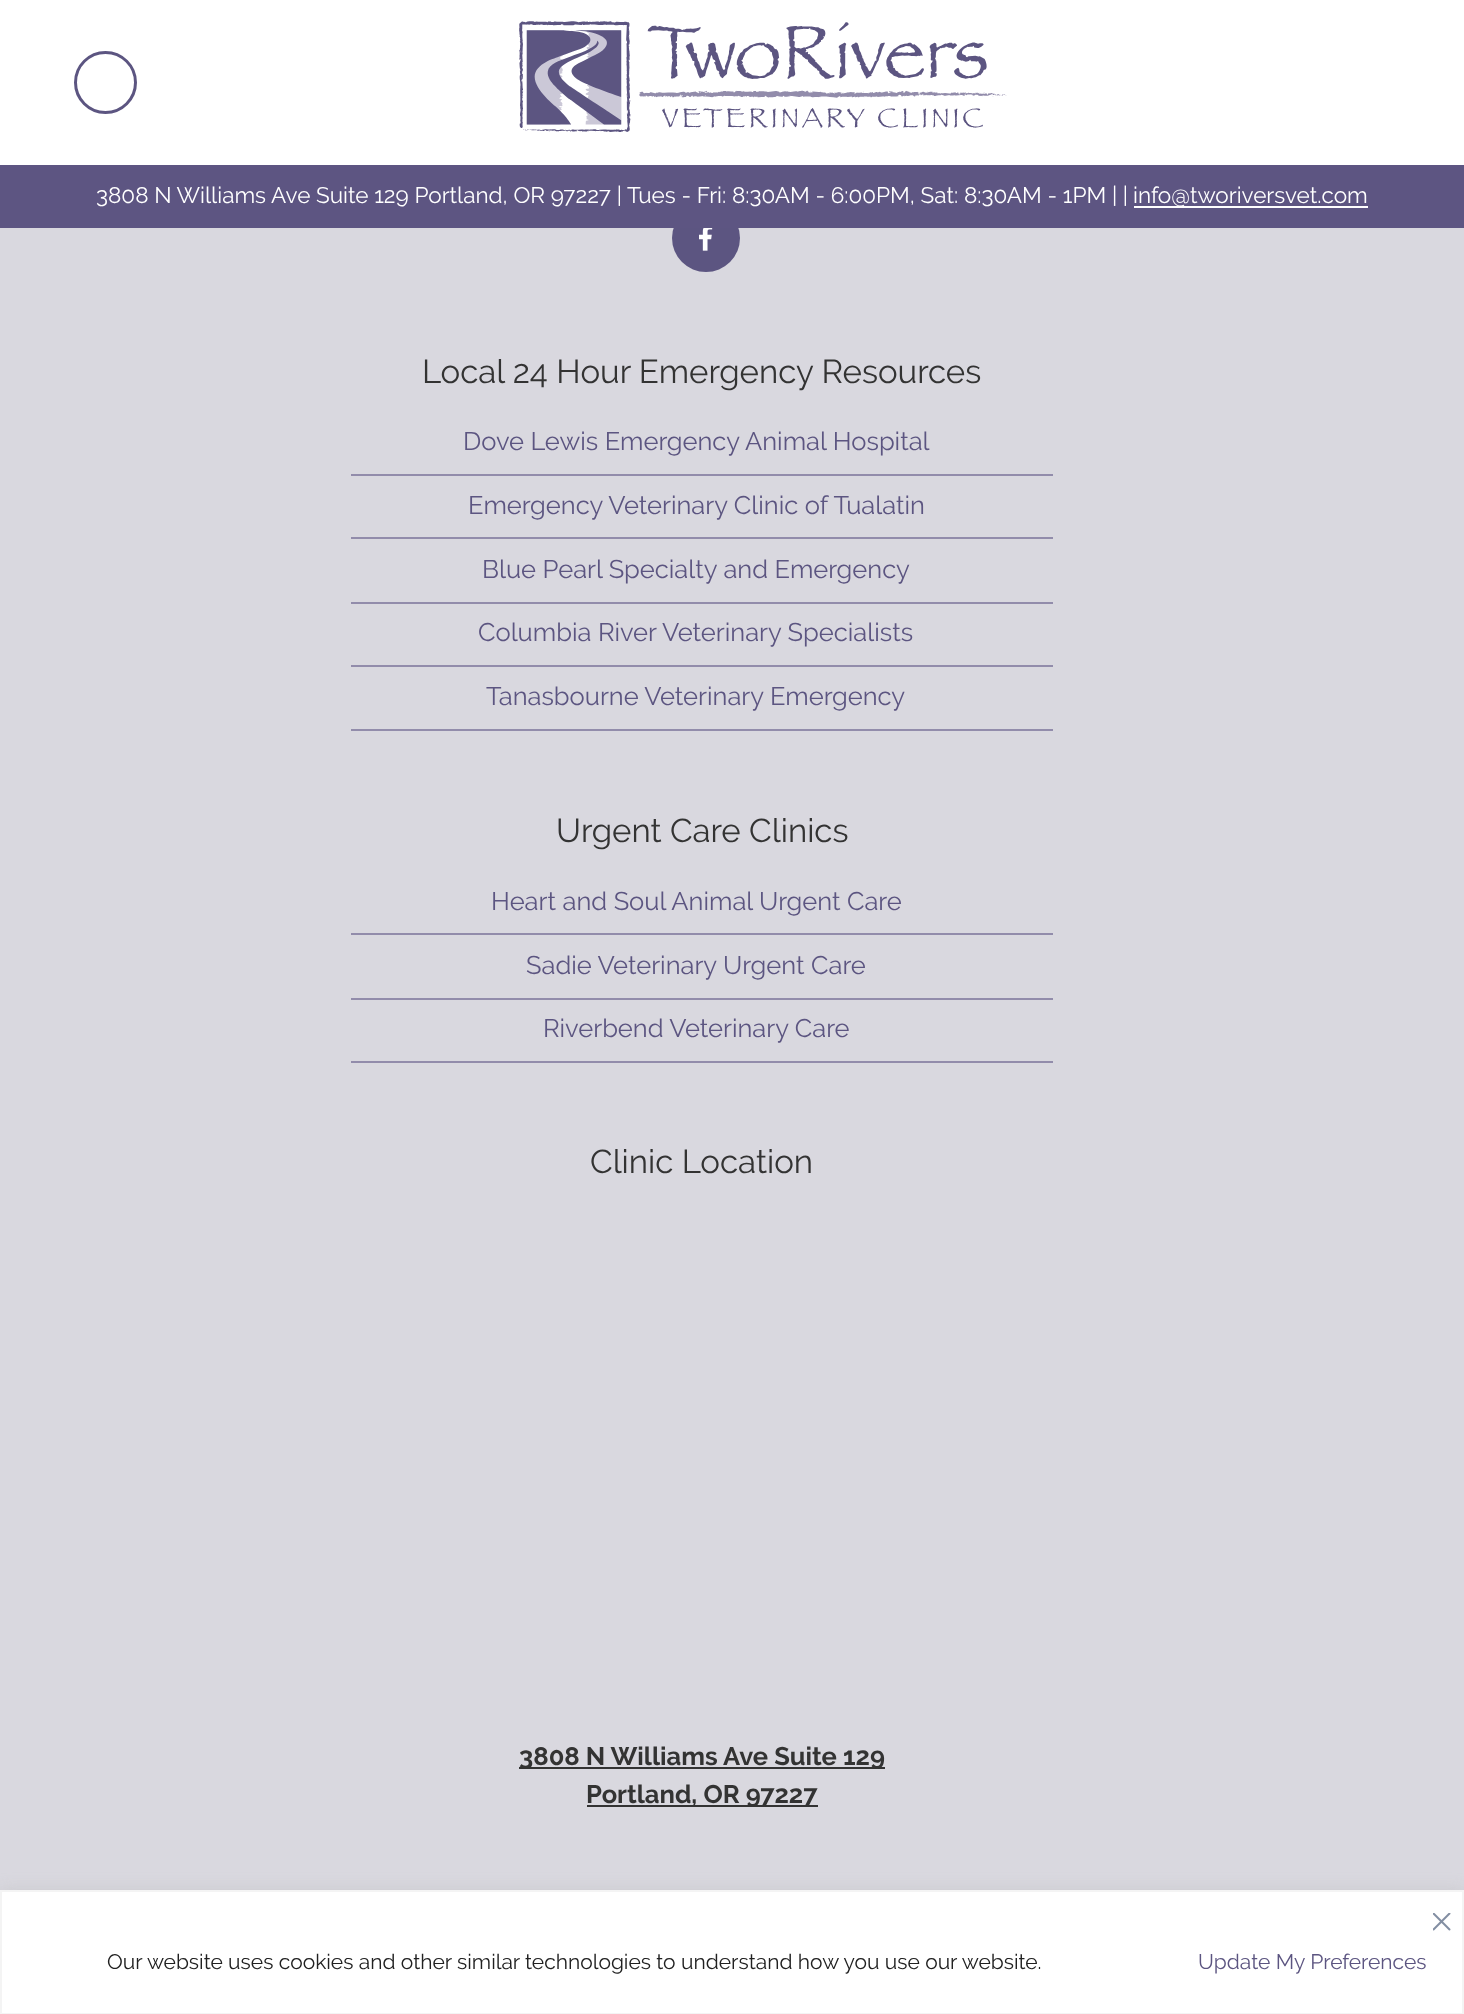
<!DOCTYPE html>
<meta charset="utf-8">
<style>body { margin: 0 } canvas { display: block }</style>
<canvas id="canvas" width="1464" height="2014"></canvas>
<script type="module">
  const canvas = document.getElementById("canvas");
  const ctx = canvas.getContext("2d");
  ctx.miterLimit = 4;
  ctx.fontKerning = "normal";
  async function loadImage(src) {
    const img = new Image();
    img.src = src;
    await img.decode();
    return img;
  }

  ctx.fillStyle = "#d9d8df";
  ctx.fillRect(0, 0, 1464, 2014);
  ctx.fillStyle = "#ffffff";
  ctx.fillRect(0, 0, 1464, 165);
  ctx.beginPath();
  ctx.arc(105.5, 82.5, 30, 0, Math.PI * 2);
  ctx.strokeStyle = "#5c5581";
  ctx.lineWidth = 3;
  ctx.stroke();
  ctx.drawImage(await loadImage("img1.png"), 519, 21, 488, 111);
  ctx.fillStyle = "#5c5581";
  ctx.beginPath();
  ctx.arc(706, 238, 34, 0, Math.PI * 2);
  ctx.fill();
  ctx.fillStyle = "#5d5582";
  ctx.fillRect(0, 165, 1464, 63);
  ctx.font = "22.5px Raleway";
  ctx.fillStyle = "#ffffff";
  ctx.fillText("3808 N Williams Ave Suite 129 Portland, OR 97227 | Tues - Fri: 8:30AM - 6:00PM, Sat: 8:30AM - 1PM | |", 96, 203);
  ctx.fillRect(1134, 206, 234, 2);
  ctx.fillText("info@tworiversvet.com", 1133, 203);
  ctx.drawImage(await loadImage("img2.png"), 699, 228, 14, 23);
  ctx.font = "33px Raleway";
  ctx.fillStyle = "#333333";
  ctx.fillText("Local 24 Hour Emergency Resources", 422, 383);
  ctx.fillStyle = "#928cab";
  ctx.fillRect(351, 474, 702, 2);
  ctx.font = "25.5px Raleway";
  ctx.fillStyle = "#5c5581";
  ctx.fillText("Dove Lewis Emergency Animal Hospital", 463, 450);
  ctx.fillStyle = "#928cab";
  ctx.fillRect(351, 537, 702, 2);
  ctx.fillStyle = "#5c5581";
  ctx.fillText("Emergency Veterinary Clinic of Tualatin", 468, 514);
  ctx.fillStyle = "#928cab";
  ctx.fillRect(351, 602, 702, 2);
  ctx.fillStyle = "#5c5581";
  ctx.fillText("Blue Pearl Specialty and Emergency", 482, 578);
  ctx.fillStyle = "#928cab";
  ctx.fillRect(351, 665, 702, 2);
  ctx.fillStyle = "#5c5581";
  ctx.fillText("Columbia River Veterinary Specialists", 478, 641);
  ctx.fillStyle = "#928cab";
  ctx.fillRect(351, 729, 702, 2);
  ctx.fillStyle = "#5c5581";
  ctx.fillText("Tanasbourne Veterinary Emergency", 486, 705);
  ctx.font = "33px Raleway";
  ctx.fillStyle = "#333333";
  ctx.fillText("Urgent Care Clinics", 556, 842);
  ctx.fillStyle = "#928cab";
  ctx.fillRect(351, 933, 702, 2);
  ctx.font = "25.5px Raleway";
  ctx.fillStyle = "#5c5581";
  ctx.fillText("Heart and Soul Animal Urgent Care", 491, 910);
  ctx.fillStyle = "#928cab";
  ctx.fillRect(351, 998, 702, 2);
  ctx.fillStyle = "#5c5581";
  ctx.fillText("Sadie Veterinary Urgent Care", 526, 974);
  ctx.fillStyle = "#928cab";
  ctx.fillRect(351, 1061, 702, 2);
  ctx.fillStyle = "#5c5581";
  ctx.fillText("Riverbend Veterinary Care", 543, 1037);
  ctx.font = "33px Raleway";
  ctx.fillStyle = "#333333";
  ctx.fillText("Clinic Location", 590, 1173);
  ctx.fillRect(519, 1767, 366, 2);
  ctx.font = "bold 25.5px Raleway";
  ctx.fillText("3808 N Williams Ave Suite 129", 519, 1765);
  ctx.fillRect(587, 1805, 231, 2);
  ctx.fillText("Portland, OR 97227", 586, 1803);
  ctx.fillStyle = "rgba(172, 171, 171, 0.3)";
  ctx.filter = "blur(7.5px)";
  ctx.beginPath();
  ctx.rect(0, 1889, 1464, 124);
  ctx.fill();
  ctx.filter = "none";
  ctx.fillStyle = "#ffffff";
  ctx.beginPath();
  ctx.rect(1, 1891, 1462, 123);
  ctx.fill();
  ctx.strokeStyle = "#f4f4f4";
  ctx.lineWidth = 2;
  ctx.stroke();
  ctx.drawImage(await loadImage("img3.png"), 1433, 1913, 18, 18);
  ctx.font = "21px Raleway";
  ctx.fillStyle = "#212121";
  ctx.fillText("Our website uses cookies and other similar technologies to understand how you use our website.", 107, 1969);
  ctx.fillStyle = "#5c5581";
  ctx.fillText("Update My Preferences", 1198, 1969);
</script>
